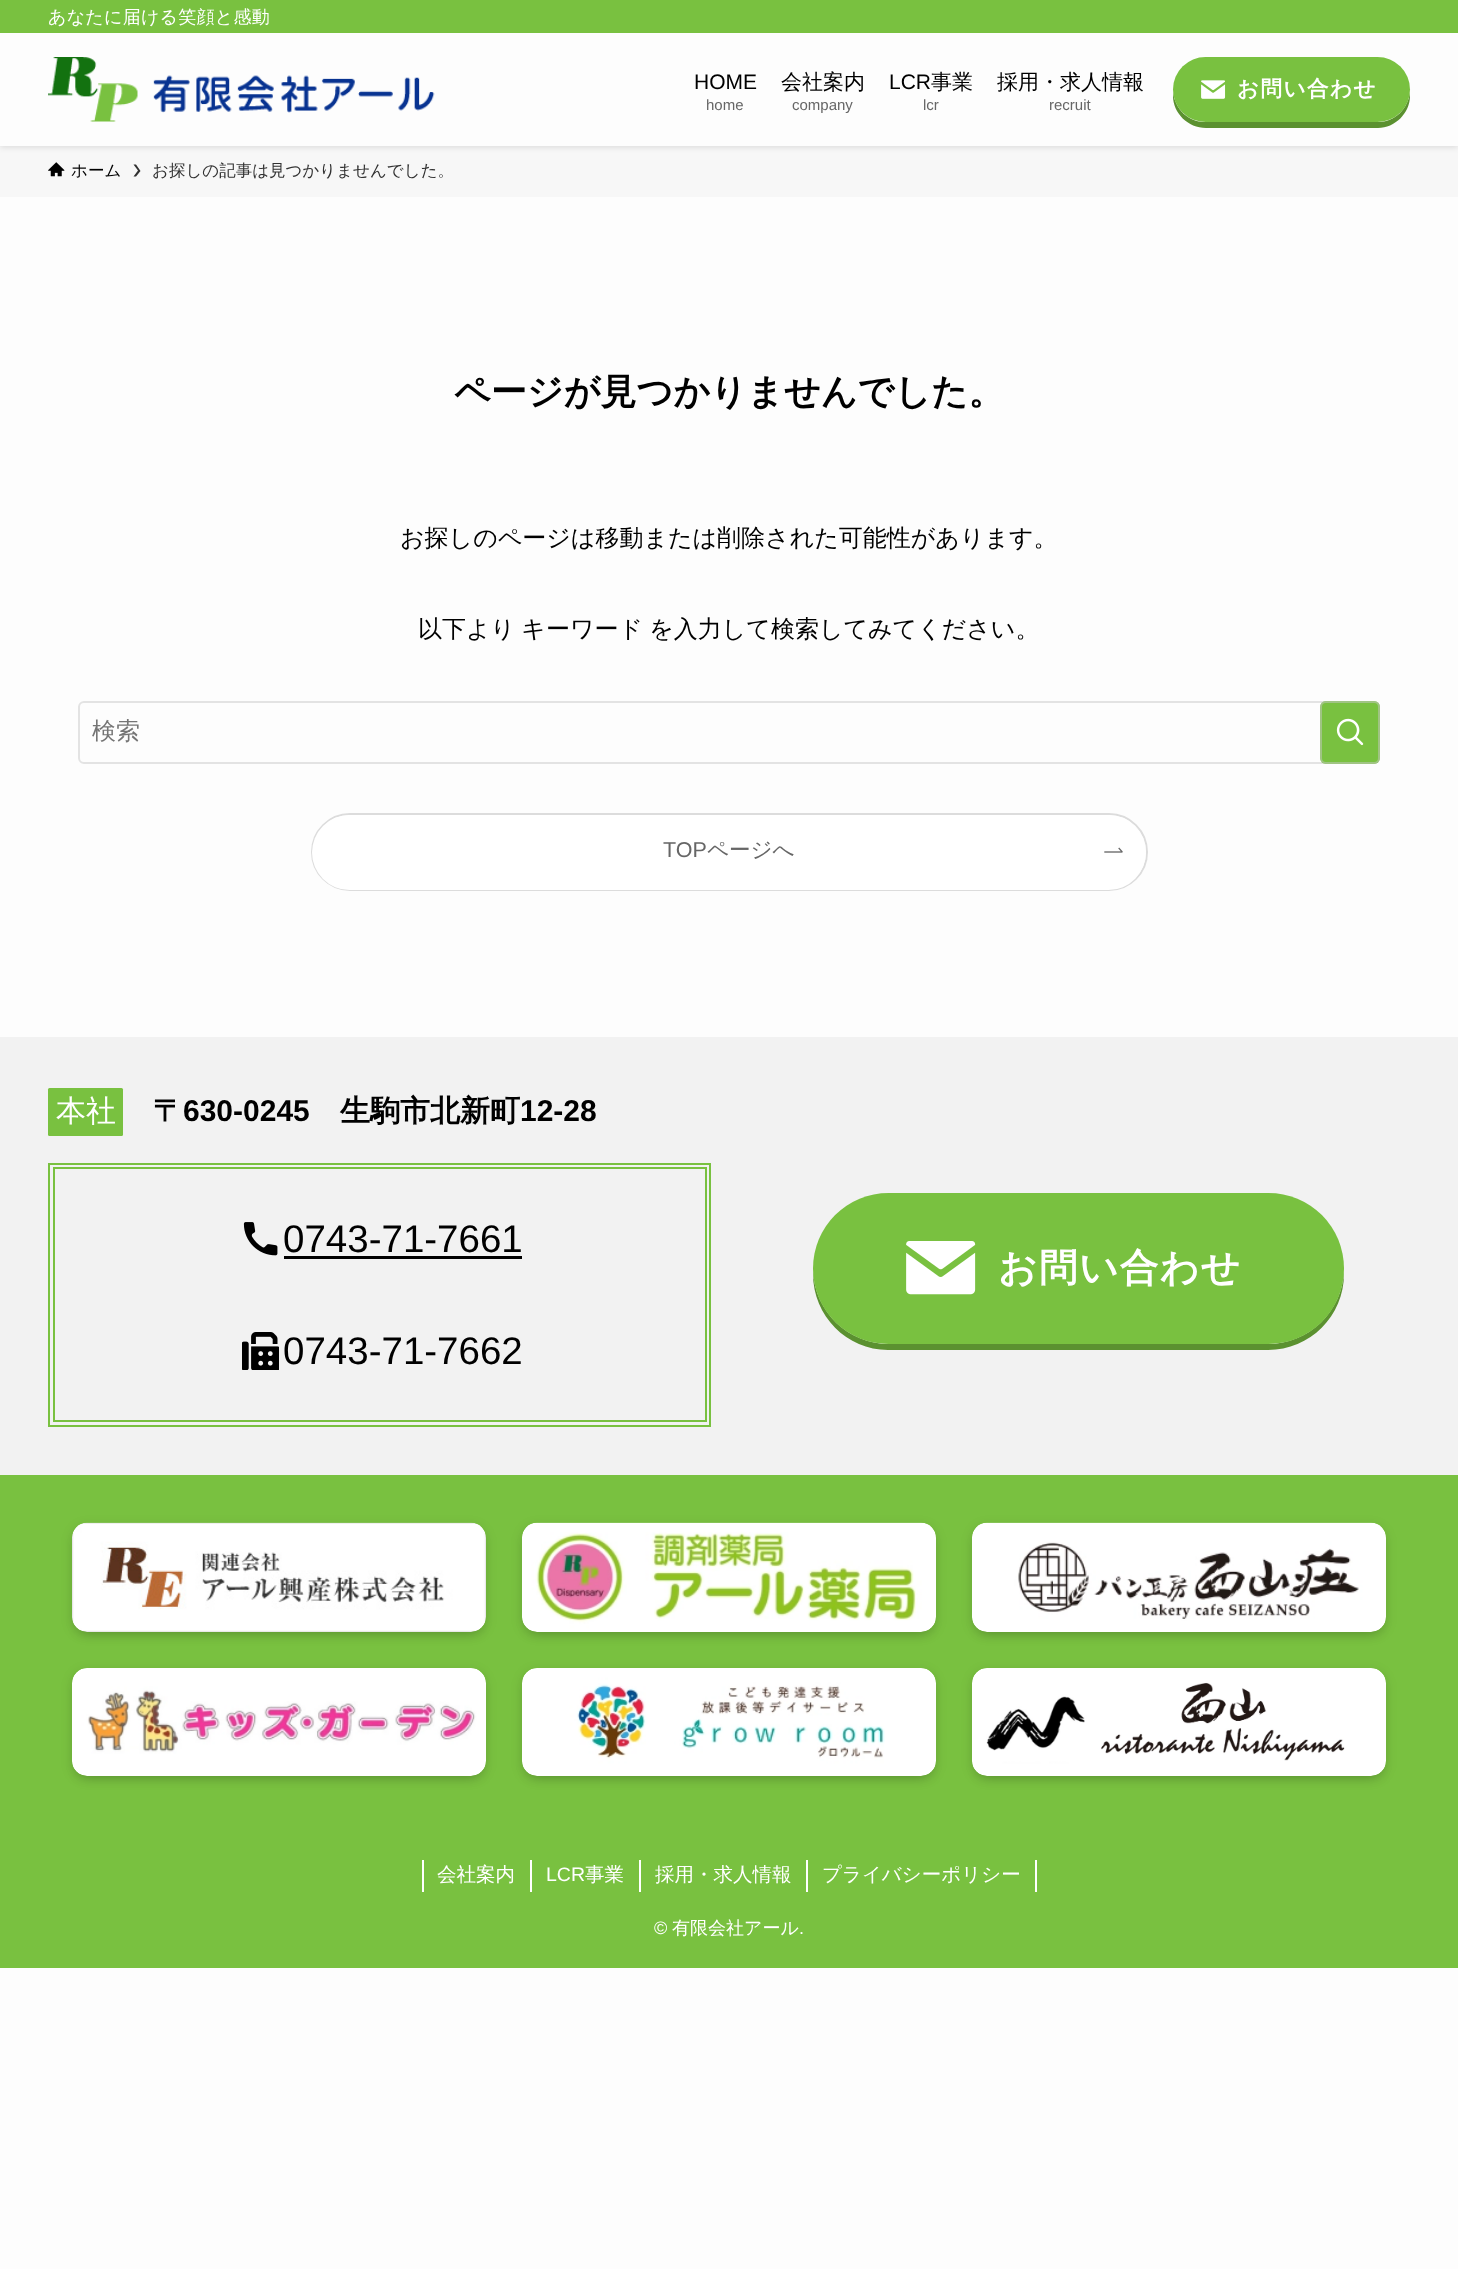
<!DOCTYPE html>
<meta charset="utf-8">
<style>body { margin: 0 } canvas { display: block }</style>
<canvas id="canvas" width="1458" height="2269"></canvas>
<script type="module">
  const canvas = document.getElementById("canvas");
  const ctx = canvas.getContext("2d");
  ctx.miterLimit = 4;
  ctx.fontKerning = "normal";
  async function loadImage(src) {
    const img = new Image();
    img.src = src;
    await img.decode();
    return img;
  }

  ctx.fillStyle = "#fdfdfd";
  ctx.fillRect(0, 0, 1458, 2269);
  ctx.fillStyle = "#f7f7f7";
  ctx.fillRect(0, 146, 1458, 51);
  ctx.fillStyle = "rgba(0, 0, 0, 0.12)";
  ctx.filter = "blur(3px)";
  ctx.beginPath();
  ctx.rect(0, 2, 1458, 145);
  ctx.fill();
  ctx.filter = "none";
  ctx.fillStyle = "#fdfdfd";
  ctx.fillRect(0, 33, 1458, 113);
  ctx.fillStyle = "#79c140";
  ctx.fillRect(0, 0, 1458, 33);
  ctx.letterSpacing = "0.25px";
  ctx.font = "500 18px WenQuanYi Zen Hei";
  ctx.fillStyle = "#ffffff";
  ctx.fillText("あなたに届ける笑顔と感動", 48, 23);
  ctx.drawImage(await loadImage("img1.png"), 48, 57, 387, 65);
  ctx.letterSpacing = "0px";
  ctx.font = "21px Liberation Sans";
  ctx.fillStyle = "#000000";
  ctx.fillText("HOME", 694, 89);
  ctx.font = "15px Liberation Sans";
  ctx.fillStyle = "#666666";
  ctx.fillText("home", 706, 110);
  ctx.font = "500 21px WenQuanYi Zen Hei";
  ctx.fillStyle = "#000000";
  ctx.fillText("会社案内", 781, 89);
  ctx.font = "15px Liberation Sans";
  ctx.fillStyle = "#666666";
  ctx.fillText("company", 792, 110);
  ctx.font = "21px Liberation Sans";
  ctx.fillStyle = "#000000";
  ctx.fillText("LCR", 889, 89);
  ctx.font = "500 21px WenQuanYi Zen Hei";
  ctx.fillText("事業", 931, 89);
  ctx.font = "15px Liberation Sans";
  ctx.fillStyle = "#666666";
  ctx.fillText("lcr", 923, 110);
  ctx.font = "500 21px WenQuanYi Zen Hei";
  ctx.fillStyle = "#000000";
  ctx.fillText("採用・求人情報", 997, 89);
  ctx.font = "15px Liberation Sans";
  ctx.fillStyle = "#666666";
  ctx.fillText("recruit", 1049, 110);
  ctx.fillStyle = "#5b9130";
  ctx.beginPath();
  ctx.moveTo(1173, 92);
  ctx.lineTo(1173, 96);
  ctx.bezierCurveTo(1173, 113, 1188, 128, 1206, 128);
  ctx.lineTo(1378, 128);
  ctx.bezierCurveTo(1395, 128, 1410, 113, 1410, 96);
  ctx.lineTo(1410, 92);
  ctx.bezierCurveTo(1408, 109, 1395, 122, 1378, 122);
  ctx.lineTo(1205, 122);
  ctx.bezierCurveTo(1188, 122, 1175, 109, 1173, 92);
  ctx.closePath();
  ctx.fill();
  ctx.fillStyle = "#79c140";
  ctx.beginPath();
  ctx.roundRect(1173, 57, 237, 65, 32.5);
  ctx.fill();
  ctx.drawImage(await loadImage("img2.png"), 1201, 80, 25, 19);
  ctx.letterSpacing = "1.5px";
  ctx.font = "bold 21.5px WenQuanYi Zen Hei";
  ctx.fillStyle = "#ffffff";
  ctx.fillText("お問い合わせ", 1237, 96);
  ctx.drawImage(await loadImage("img3.png"), 48, 162, 17, 15);
  ctx.letterSpacing = "0px";
  ctx.font = "500 16.5px WenQuanYi Zen Hei";
  ctx.fillStyle = "#000000";
  ctx.fillText("ホーム", 71, 176);
  ctx.fillStyle = "#313131";
  ctx.beginPath();
  ctx.moveTo(136, 164.5);
  ctx.lineTo(133.5, 164.5);
  ctx.lineTo(138, 170.5);
  ctx.lineTo(133.5, 176.5);
  ctx.lineTo(136, 176.5);
  ctx.lineTo(140.5, 171);
  ctx.closePath();
  ctx.fill();
  ctx.fillText("お探しの記事は見つかりませんでした。", 152, 176);
  ctx.font = "bold 36px WenQuanYi Zen Hei";
  ctx.fillStyle = "#000000";
  ctx.fillText("ページが見つかりませんでした。", 454, 404);
  ctx.font = "500 24px WenQuanYi Zen Hei";
  ctx.fillText("お探しのページは移動または削除された可能性があります。", 400, 546);
  ctx.wordSpacing = "-1px";
  ctx.fillText("以下より キーワード を入力して検索してみてください。", 418, 637);
  ctx.beginPath();
  ctx.roundRect(79, 702, 1300, 61, 5);
  ctx.strokeStyle = "#e3e3e3";
  ctx.lineWidth = 2;
  ctx.stroke();
  ctx.wordSpacing = "0px";
  ctx.fillStyle = "#757575";
  ctx.fillText("検索", 92, 739);
  ctx.fillStyle = "#79c140";
  ctx.beginPath();
  ctx.roundRect(1320, 701, 60, 63, 6);
  ctx.fill();
  ctx.beginPath();
  ctx.roundRect(1321, 702, 58, 61, 5);
  ctx.strokeStyle = "rgba(199, 199, 199, 0.5)";
  ctx.stroke();
  ctx.drawImage(await loadImage("img4.png"), 1336, 718, 28, 28);
  ctx.beginPath();
  ctx.roundRect(312, 814, 835, 76, 38);
  ctx.strokeStyle = "#dcdcdc";
  ctx.stroke();
  ctx.fillStyle = "#ffffff";
  ctx.beginPath();
  ctx.roundRect(312, 815, 834, 75, 37.5);
  ctx.fill();
  ctx.font = "21.5px Liberation Sans";
  ctx.fillStyle = "#666666";
  ctx.fillText("TOP", 663, 857);
  ctx.font = "500 21.5px WenQuanYi Zen Hei";
  ctx.fillText("ページへ", 707, 857);
  ctx.drawImage(await loadImage("img5.png"), 1104, 847, 19, 6);
  ctx.fillStyle = "#f2f2f2";
  ctx.fillRect(0, 1037, 1458, 438);
  ctx.fillStyle = "#79c140";
  ctx.beginPath();
  ctx.roundRect(48, 1088, 75, 48, 1.5);
  ctx.fill();
  ctx.font = "500 30px WenQuanYi Zen Hei";
  ctx.fillStyle = "#ffffff";
  ctx.fillText("本社", 56, 1121);
  ctx.font = "bold 30px WenQuanYi Zen Hei";
  ctx.fillStyle = "#000000";
  ctx.fillText("〒", 153, 1121);
  ctx.font = "bold 30px Liberation Sans";
  ctx.fillText("630-0245", 183, 1121);
  ctx.font = "bold 30px WenQuanYi Zen Hei";
  ctx.fillText("生駒市北新町", 340, 1121);
  ctx.font = "bold 30px Liberation Sans";
  ctx.fillText("12-28", 520, 1121);
  ctx.strokeStyle = "#79c140";
  ctx.strokeRect(49, 1164, 661, 262);
  ctx.strokeRect(54, 1168, 652, 253);
  ctx.drawImage(await loadImage("img6.png"), 243, 1222, 35, 34);
  ctx.font = "38.5px Liberation Sans";
  ctx.fillText("0743-71-7661", 283, 1252);
  ctx.fillRect(284, 1256, 238, 3);
  ctx.drawImage(await loadImage("img7.png"), 242, 1332, 37, 38);
  ctx.fillText("0743-71-7662", 283, 1364);
  ctx.fillStyle = "#5b9130";
  ctx.beginPath();
  ctx.moveTo(813, 1271);
  ctx.lineTo(813, 1274);
  ctx.bezierCurveTo(813, 1316, 847, 1350, 888, 1350);
  ctx.lineTo(1268, 1350);
  ctx.bezierCurveTo(1310, 1350, 1344, 1316, 1344, 1274);
  ctx.lineTo(1344, 1271);
  ctx.bezierCurveTo(1342, 1312, 1309, 1344, 1268, 1344);
  ctx.lineTo(889, 1344);
  ctx.bezierCurveTo(848, 1344, 815, 1312, 813, 1271);
  ctx.closePath();
  ctx.fill();
  ctx.fillStyle = "#79c140";
  ctx.beginPath();
  ctx.roundRect(813, 1193, 531, 151, 75.5);
  ctx.fill();
  ctx.drawImage(await loadImage("img8.png"), 906, 1241, 70, 54);
  ctx.letterSpacing = "1.5px";
  ctx.font = "bold 38.5px WenQuanYi Zen Hei";
  ctx.fillStyle = "#ffffff";
  ctx.fillText("お問い合わせ", 998, 1281);
  ctx.fillStyle = "#79c140";
  ctx.fillRect(0, 1475, 1458, 493);
  ctx.fillStyle = "rgba(0, 0, 0, 0.2)";
  ctx.filter = "blur(6px)";
  ctx.beginPath();
  ctx.roundRect(78, 1535, 402, 97, 9);
  ctx.fill();
  ctx.filter = "none";
  ctx.fillStyle = "rgba(0, 0, 0, 0.1)";
  ctx.filter = "blur(6px)";
  ctx.beginPath();
  ctx.roundRect(72, 1526, 414, 109, 15);
  ctx.fill();
  ctx.filter = "none";
  ctx.drawImage(await loadImage("img9.png"), 72, 1522, 414, 110);
  ctx.fillStyle = "rgba(0, 0, 0, 0.2)";
  ctx.filter = "blur(6px)";
  ctx.beginPath();
  ctx.roundRect(528, 1535, 402, 97, 9);
  ctx.fill();
  ctx.filter = "none";
  ctx.fillStyle = "rgba(0, 0, 0, 0.1)";
  ctx.filter = "blur(6px)";
  ctx.beginPath();
  ctx.roundRect(522, 1526, 414, 109, 15);
  ctx.fill();
  ctx.filter = "none";
  ctx.drawImage(await loadImage("img10.png"), 522, 1522, 414, 110);
  ctx.fillStyle = "rgba(0, 0, 0, 0.2)";
  ctx.filter = "blur(6px)";
  ctx.beginPath();
  ctx.roundRect(978, 1535, 402, 97, 9);
  ctx.fill();
  ctx.filter = "none";
  ctx.fillStyle = "rgba(0, 0, 0, 0.1)";
  ctx.filter = "blur(6px)";
  ctx.beginPath();
  ctx.roundRect(972, 1526, 414, 109, 15);
  ctx.fill();
  ctx.filter = "none";
  ctx.drawImage(await loadImage("img11.png"), 972, 1522, 414, 110);
  ctx.fillStyle = "rgba(0, 0, 0, 0.2)";
  ctx.filter = "blur(6px)";
  ctx.beginPath();
  ctx.roundRect(78, 1680, 402, 96, 9);
  ctx.fill();
  ctx.filter = "none";
  ctx.fillStyle = "rgba(0, 0, 0, 0.1)";
  ctx.filter = "blur(6px)";
  ctx.beginPath();
  ctx.roundRect(72, 1671, 414, 108, 15);
  ctx.fill();
  ctx.filter = "none";
  ctx.drawImage(await loadImage("img12.png"), 72, 1668, 414, 108);
  ctx.fillStyle = "rgba(0, 0, 0, 0.2)";
  ctx.filter = "blur(6px)";
  ctx.beginPath();
  ctx.roundRect(528, 1680, 402, 96, 9);
  ctx.fill();
  ctx.filter = "none";
  ctx.fillStyle = "rgba(0, 0, 0, 0.1)";
  ctx.filter = "blur(6px)";
  ctx.beginPath();
  ctx.roundRect(522, 1671, 414, 108, 15);
  ctx.fill();
  ctx.filter = "none";
  ctx.drawImage(await loadImage("img13.png"), 522, 1668, 414, 108);
  ctx.fillStyle = "rgba(0, 0, 0, 0.2)";
  ctx.filter = "blur(6px)";
  ctx.beginPath();
  ctx.roundRect(978, 1680, 402, 96, 9);
  ctx.fill();
  ctx.filter = "none";
  ctx.fillStyle = "rgba(0, 0, 0, 0.1)";
  ctx.filter = "blur(6px)";
  ctx.beginPath();
  ctx.roundRect(972, 1671, 414, 108, 15);
  ctx.fill();
  ctx.filter = "none";
  ctx.drawImage(await loadImage("img14.png"), 972, 1668, 414, 108);
  ctx.fillStyle = "#ffffff";
  ctx.fillRect(530, 1860, 2, 32);
  ctx.fillRect(422, 1860, 2, 32);
  ctx.letterSpacing = "0px";
  ctx.font = "500 19.5px WenQuanYi Zen Hei";
  ctx.fillText("会社案内", 437, 1881);
  ctx.fillRect(639, 1860, 2, 32);
  ctx.font = "19.5px Liberation Sans";
  ctx.fillText("LCR", 546, 1881);
  ctx.font = "500 19.5px WenQuanYi Zen Hei";
  ctx.fillText("事業", 585, 1881);
  ctx.fillRect(806, 1860, 2, 32);
  ctx.fillText("採用・求人情報", 655, 1881);
  ctx.fillRect(1035, 1860, 2, 32);
  ctx.fillText("プライバシーポリシー", 822, 1881);
  ctx.font = "18px Liberation Sans";
  ctx.fillText("©", 654, 1934);
  ctx.font = "500 18px WenQuanYi Zen Hei";
  ctx.fillText("有限会社アール", 672, 1934);
  ctx.font = "18px Liberation Sans";
  ctx.fillText(".", 799, 1934);
</script>
